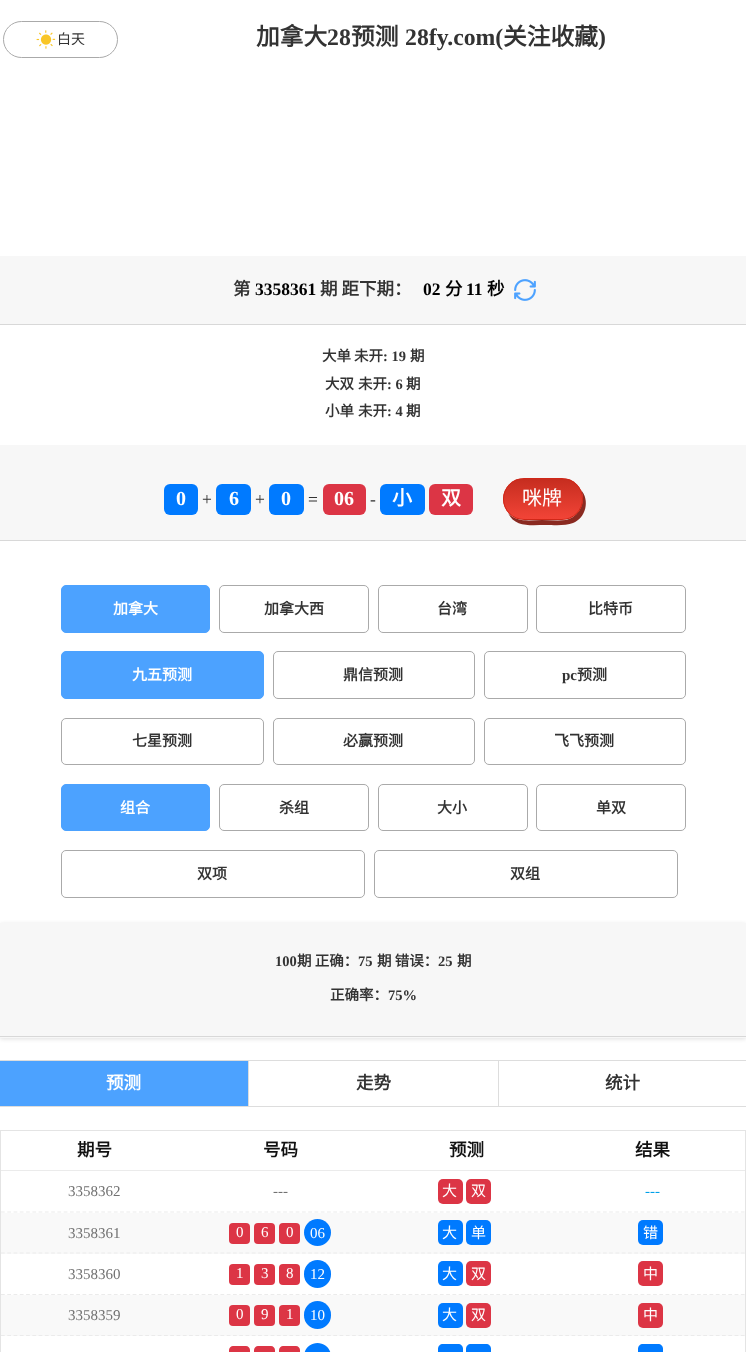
<!DOCTYPE html>
<meta charset="utf-8">
<style>body { margin: 0 } canvas { display: block }</style>
<canvas id="canvas" width="746" height="1352"></canvas>
<script type="module">
  const canvas = document.getElementById("canvas");
  const ctx = canvas.getContext("2d");
  ctx.miterLimit = 4;
  ctx.fontKerning = "normal";
  async function loadImage(src) {
    const img = new Image();
    img.src = src;
    await img.decode();
    return img;
  }
  let gradient;

  ctx.fillStyle = "#ffffff";
  ctx.fillRect(0, 0, 746, 1352);
  ctx.beginPath();
  ctx.roundRect(3.5, 21.5, 114, 36, 18);
  ctx.strokeStyle = "#aaaaaa";
  ctx.stroke();
  ctx.drawImage(await loadImage("img1.png"), 36, 30, 20, 19);
  ctx.font = "14px Noto Sans CJK SC";
  ctx.fillStyle = "#333333";
  ctx.fillText("白天", 57, 44);
  ctx.font = "bold 23.75px Noto Sans CJK SC";
  ctx.fillText("加拿大", 256, 45);
  ctx.font = "bold 23.75px Liberation Serif";
  ctx.fillText("28", 327, 45);
  ctx.font = "bold 23.75px Noto Sans CJK SC";
  ctx.fillText("预测", 351, 45);
  ctx.font = "bold 23.75px Liberation Serif";
  ctx.fillText("28fy.com(", 405, 45);
  ctx.font = "bold 23.75px Noto Sans CJK SC";
  ctx.fillText("关注收藏", 503, 45);
  ctx.font = "bold 23.75px Liberation Serif";
  ctx.fillText(")", 598, 45);
  ctx.fillStyle = "#f7f7f7";
  ctx.fillRect(0, 256, 746, 68);
  ctx.fillStyle = "#d8d8d8";
  ctx.fillRect(0, 324, 746, 1);
  ctx.font = "bold 17.5px Noto Sans CJK SC";
  ctx.fillStyle = "#333333";
  ctx.fillText("第", 233, 295);
  ctx.font = "bold 17.5px Liberation Serif";
  ctx.fillStyle = "#000000";
  ctx.fillText("3358361", 255, 295);
  ctx.font = "bold 17.5px Noto Sans CJK SC";
  ctx.fillStyle = "#333333";
  ctx.fillText("期 距下期：", 320, 295);
  ctx.font = "bold 17.5px Liberation Serif";
  ctx.fillStyle = "#000000";
  ctx.fillText("02", 423, 295);
  ctx.font = "bold 17.5px Noto Sans CJK SC";
  ctx.fillText("分", 445, 295);
  ctx.font = "bold 17.5px Liberation Serif";
  ctx.fillText("11", 466, 295);
  ctx.font = "bold 17.5px Noto Sans CJK SC";
  ctx.fillText("秒", 487, 295);
  ctx.drawImage(await loadImage("img2.png"), 514, 279, 22, 22);
  ctx.font = "bold 14.5px Noto Sans CJK SC";
  ctx.fillStyle = "#333333";
  ctx.fillText("大单", 322, 361);
  ctx.fillText("未开", 354, 361);
  ctx.font = "bold 14.5px Liberation Serif";
  ctx.fillText(": 19", 383, 361);
  ctx.font = "bold 14.5px Noto Sans CJK SC";
  ctx.fillText("期", 410, 361);
  ctx.fillText("大双", 325, 389);
  ctx.fillText("未开", 358, 389);
  ctx.font = "bold 14.5px Liberation Serif";
  ctx.fillText(": 6", 387, 389);
  ctx.font = "bold 14.5px Noto Sans CJK SC";
  ctx.fillText("期", 406, 389);
  ctx.fillText("小单", 325, 416);
  ctx.fillText("未开", 358, 416);
  ctx.font = "bold 14.5px Liberation Serif";
  ctx.fillText(": 4", 387, 416);
  ctx.font = "bold 14.5px Noto Sans CJK SC";
  ctx.fillText("期", 406, 416);
  ctx.fillStyle = "#f7f7f7";
  ctx.fillRect(0, 445, 746, 95);
  ctx.fillStyle = "#d8d8d8";
  ctx.fillRect(0, 540, 746, 1);
  ctx.fillStyle = "#007aff";
  ctx.beginPath();
  ctx.roundRect(164, 484, 34, 31, 6);
  ctx.fill();
  ctx.font = "bold 20px Liberation Serif";
  ctx.fillStyle = "#ffffff";
  ctx.fillText("0", 176, 505);
  ctx.font = "17.5px Liberation Serif";
  ctx.fillStyle = "#333333";
  ctx.fillText("+", 202, 505);
  ctx.fillStyle = "#007aff";
  ctx.beginPath();
  ctx.roundRect(216, 484, 35, 31, 6);
  ctx.fill();
  ctx.font = "bold 20px Liberation Serif";
  ctx.fillStyle = "#ffffff";
  ctx.fillText("6", 229, 505);
  ctx.font = "17.5px Liberation Serif";
  ctx.fillStyle = "#333333";
  ctx.fillText("+", 255, 505);
  ctx.fillStyle = "#007aff";
  ctx.beginPath();
  ctx.roundRect(269, 484, 35, 31, 6);
  ctx.fill();
  ctx.font = "bold 20px Liberation Serif";
  ctx.fillStyle = "#ffffff";
  ctx.fillText("0", 281, 505);
  ctx.font = "17.5px Liberation Serif";
  ctx.fillStyle = "#333333";
  ctx.fillText("=", 308, 505);
  ctx.fillStyle = "#dc3545";
  ctx.beginPath();
  ctx.roundRect(323, 484, 43, 31, 6);
  ctx.fill();
  ctx.font = "bold 20px Liberation Serif";
  ctx.fillStyle = "#ffffff";
  ctx.fillText("06", 334, 505);
  ctx.font = "17.5px Liberation Serif";
  ctx.fillStyle = "#333333";
  ctx.fillText("-", 370, 505);
  ctx.fillStyle = "#007aff";
  ctx.beginPath();
  ctx.roundRect(380, 484, 45, 31, 6);
  ctx.fill();
  ctx.font = "bold 20px Noto Sans CJK SC";
  ctx.fillStyle = "#ffffff";
  ctx.fillText("小", 392, 505);
  ctx.fillStyle = "#dc3545";
  ctx.beginPath();
  ctx.roundRect(429, 484, 44, 31, 6);
  ctx.fill();
  ctx.fillStyle = "#ffffff";
  ctx.fillText("双", 441, 505);
  ctx.fillStyle = "#8a2a21";
  ctx.beginPath();
  ctx.moveTo(508, 513);
  ctx.bezierCurveTo(515, 528, 532, 525, 546, 525);
  ctx.bezierCurveTo(554, 525, 566, 526, 573, 523);
  ctx.bezierCurveTo(586, 518, 590, 500, 581, 490);
  ctx.bezierCurveTo(586, 502, 579, 517, 566, 520);
  ctx.bezierCurveTo(558, 521, 550, 520, 542, 520);
  ctx.bezierCurveTo(531, 520, 517, 523, 508, 513);
  ctx.closePath();
  ctx.fill();
  ctx.save();
  ctx.beginPath();
  ctx.roundRect(503, 478, 80, 42, 21);
  ctx.clip();
  gradient = ctx.createLinearGradient(543, 479, 543, 519);
  gradient.addColorStop(0, "#c62d1f");
  gradient.addColorStop(1, "#f24437");
  ctx.fillStyle = gradient;
  ctx.fillRect(503, 479, 80, 40);
  ctx.restore();
  ctx.beginPath();
  ctx.roundRect(503.5, 478.5, 79, 41, 20.5);
  ctx.strokeStyle = "#d02718";
  ctx.stroke();
  ctx.font = "20px Noto Sans CJK SC";
  ctx.fillStyle = "#ffffff";
  ctx.fillText("咪牌", 522, 505);
  ctx.fillStyle = "#4ca2ff";
  ctx.beginPath();
  ctx.roundRect(61.5, 585.5, 148, 47, 4.5);
  ctx.fill();
  ctx.strokeStyle = "#4ca2ff";
  ctx.stroke();
  ctx.font = "bold 15px Noto Sans CJK SC";
  ctx.fillStyle = "#ffffff";
  ctx.fillText("加拿大", 113, 614);
  ctx.beginPath();
  ctx.roundRect(219.5, 585.5, 149, 47, 4.5);
  ctx.strokeStyle = "#aaaaaa";
  ctx.stroke();
  ctx.fillStyle = "#333333";
  ctx.fillText("加拿大西", 264, 614);
  ctx.beginPath();
  ctx.roundRect(378.5, 585.5, 149, 47, 4.5);
  ctx.stroke();
  ctx.fillText("台湾", 437, 614);
  ctx.beginPath();
  ctx.roundRect(536.5, 585.5, 149, 47, 4.5);
  ctx.stroke();
  ctx.fillText("比特币", 588, 614);
  ctx.fillStyle = "#4ca2ff";
  ctx.beginPath();
  ctx.roundRect(61.5, 651.5, 202, 47, 4.5);
  ctx.fill();
  ctx.strokeStyle = "#4ca2ff";
  ctx.stroke();
  ctx.fillStyle = "#ffffff";
  ctx.fillText("九五预测", 132, 680);
  ctx.beginPath();
  ctx.roundRect(273.5, 651.5, 201, 47, 4.5);
  ctx.strokeStyle = "#aaaaaa";
  ctx.stroke();
  ctx.fillStyle = "#333333";
  ctx.fillText("鼎信预测", 343, 680);
  ctx.beginPath();
  ctx.roundRect(484.5, 651.5, 201, 47, 4.5);
  ctx.stroke();
  ctx.font = "bold 15px Liberation Serif";
  ctx.fillText("pc", 562, 680);
  ctx.font = "bold 15px Noto Sans CJK SC";
  ctx.fillText("预测", 577, 680);
  ctx.beginPath();
  ctx.roundRect(61.5, 718.5, 202, 46, 4.5);
  ctx.stroke();
  ctx.fillText("七星预测", 132, 746);
  ctx.beginPath();
  ctx.roundRect(273.5, 718.5, 201, 46, 4.5);
  ctx.stroke();
  ctx.fillText("必赢预测", 343, 746);
  ctx.beginPath();
  ctx.roundRect(484.5, 718.5, 201, 46, 4.5);
  ctx.stroke();
  ctx.fillText("飞飞预测", 554, 746);
  ctx.fillStyle = "#4ca2ff";
  ctx.beginPath();
  ctx.roundRect(61.5, 784.5, 148, 46, 4.5);
  ctx.fill();
  ctx.strokeStyle = "#4ca2ff";
  ctx.stroke();
  ctx.fillStyle = "#ffffff";
  ctx.fillText("组合", 120, 813);
  ctx.beginPath();
  ctx.roundRect(219.5, 784.5, 149, 46, 4.5);
  ctx.strokeStyle = "#aaaaaa";
  ctx.stroke();
  ctx.fillStyle = "#333333";
  ctx.fillText("杀组", 279, 813);
  ctx.beginPath();
  ctx.roundRect(378.5, 784.5, 149, 46, 4.5);
  ctx.stroke();
  ctx.fillText("大小", 437, 813);
  ctx.beginPath();
  ctx.roundRect(536.5, 784.5, 149, 46, 4.5);
  ctx.stroke();
  ctx.fillText("单双", 596, 813);
  ctx.beginPath();
  ctx.roundRect(61.5, 850.5, 303, 47, 4.5);
  ctx.stroke();
  ctx.fillText("双项", 197, 879);
  ctx.beginPath();
  ctx.roundRect(374.5, 850.5, 303, 47, 4.5);
  ctx.stroke();
  ctx.fillText("双组", 510, 879);
  ctx.save();
  ctx.beginPath();
  ctx.moveTo(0, 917);
  ctx.lineTo(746, 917);
  ctx.lineTo(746, 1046);
  ctx.lineTo(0, 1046);
  ctx.closePath();
  ctx.moveTo(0, 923);
  ctx.lineTo(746, 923);
  ctx.lineTo(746, 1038);
  ctx.lineTo(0, 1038);
  ctx.closePath();
  ctx.clip("evenodd");
  ctx.fillStyle = "rgba(0, 0, 0, 0.12)";
  ctx.filter = "blur(2px)";
  ctx.beginPath();
  ctx.rect(0, 924, 746, 115);
  ctx.fill();
  ctx.filter = "none";
  ctx.restore();
  ctx.fillStyle = "rgba(0, 0, 0, 0.03)";
  ctx.fillRect(0, 923, 746, 115);
  ctx.fillStyle = "#d8d8d8";
  ctx.fillRect(0, 1036, 746, 1);
  ctx.font = "bold 14.5px Liberation Serif";
  ctx.fillStyle = "#333333";
  ctx.fillText("100", 275, 966);
  ctx.font = "bold 14.5px Noto Sans CJK SC";
  ctx.fillText("期 正确：", 297, 966);
  ctx.font = "bold 14.5px Liberation Serif";
  ctx.fillText("75", 358, 966);
  ctx.font = "bold 14.5px Noto Sans CJK SC";
  ctx.fillText("期 错误：", 377, 966);
  ctx.font = "bold 14.5px Liberation Serif";
  ctx.fillText("25", 438, 966);
  ctx.font = "bold 14.5px Noto Sans CJK SC";
  ctx.fillText("期", 457, 966);
  ctx.fillText("正确率：", 330, 1000);
  ctx.font = "bold 14.5px Liberation Serif";
  ctx.fillText("75%", 388, 1000);
  ctx.fillStyle = "#dddddd";
  ctx.fillRect(0, 1060, 746, 1);
  ctx.fillRect(0, 1106, 746, 1);
  ctx.fillStyle = "#4ca2ff";
  ctx.fillRect(0, 1061, 248, 45);
  ctx.fillStyle = "#dddddd";
  ctx.fillRect(248, 1061, 1, 45);
  ctx.font = "bold 17.5px Noto Sans CJK SC";
  ctx.fillStyle = "#ffffff";
  ctx.fillText("预测", 106, 1089);
  ctx.fillStyle = "#dddddd";
  ctx.fillRect(498, 1061, 1, 45);
  ctx.fillStyle = "#333333";
  ctx.fillText("走势", 356, 1089);
  ctx.fillText("统计", 605, 1089);
  ctx.strokeStyle = "#e4e4e4";
  ctx.strokeRect(0.5, 1130.5, 745, 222);
  ctx.fillStyle = "#ebebeb";
  ctx.fillRect(1, 1170, 744, 1);
  ctx.fillStyle = "#111111";
  ctx.fillText("期号", 77, 1156);
  ctx.fillText("号码", 263, 1156);
  ctx.fillText("预测", 449, 1156);
  ctx.fillText("结果", 635, 1156);
  ctx.beginPath();
  ctx.moveTo(1, 1212);
  ctx.lineTo(745, 1212);
  ctx.strokeStyle = "#ebebeb";
  ctx.lineWidth = 1.2;
  ctx.setLineDash([3.75, 2.52]);
  ctx.stroke();
  ctx.font = "15px Liberation Serif";
  ctx.fillStyle = "#717171";
  ctx.fillText("3358362", 68, 1196);
  ctx.fillText("---", 273, 1196);
  ctx.fillStyle = "#dc3545";
  ctx.beginPath();
  ctx.roundRect(438, 1179, 25, 25, 5);
  ctx.fill();
  ctx.font = "15px Noto Sans CJK SC";
  ctx.fillStyle = "#ffffff";
  ctx.fillText("大", 442, 1196);
  ctx.fillStyle = "#dc3545";
  ctx.beginPath();
  ctx.roundRect(466, 1179, 25, 25, 5);
  ctx.fill();
  ctx.fillStyle = "#ffffff";
  ctx.fillText("双", 471, 1196);
  ctx.font = "15px Liberation Serif";
  ctx.fillStyle = "#00a0e9";
  ctx.fillText("---", 645, 1196);
  ctx.fillStyle = "#f9f9f9";
  ctx.fillRect(1, 1213, 744, 41);
  ctx.beginPath();
  ctx.moveTo(1, 1253);
  ctx.lineTo(745, 1253);
  ctx.stroke();
  ctx.fillStyle = "#717171";
  ctx.fillText("3358361", 68, 1238);
  ctx.fillStyle = "#dc3545";
  ctx.beginPath();
  ctx.roundRect(229, 1223, 21, 21, 4);
  ctx.fill();
  ctx.fillStyle = "#ffffff";
  ctx.fillText("0", 236, 1237);
  ctx.fillStyle = "#dc3545";
  ctx.beginPath();
  ctx.roundRect(254, 1223, 21, 21, 4);
  ctx.fill();
  ctx.fillStyle = "#ffffff";
  ctx.fillText("6", 261, 1237);
  ctx.fillStyle = "#dc3545";
  ctx.beginPath();
  ctx.roundRect(279, 1223, 21, 21, 4);
  ctx.fill();
  ctx.fillStyle = "#ffffff";
  ctx.fillText("0", 286, 1237);
  ctx.fillStyle = "#007aff";
  ctx.beginPath();
  ctx.arc(317.5, 1232.5, 13.5, 0, Math.PI * 2);
  ctx.fill();
  ctx.fillStyle = "#ffffff";
  ctx.fillText("06", 310, 1238);
  ctx.fillStyle = "#007aff";
  ctx.beginPath();
  ctx.roundRect(438, 1220, 25, 25, 5);
  ctx.fill();
  ctx.font = "15px Noto Sans CJK SC";
  ctx.fillStyle = "#ffffff";
  ctx.fillText("大", 442, 1238);
  ctx.fillStyle = "#007aff";
  ctx.beginPath();
  ctx.roundRect(466, 1220, 25, 25, 5);
  ctx.fill();
  ctx.fillStyle = "#ffffff";
  ctx.fillText("单", 471, 1238);
  ctx.fillStyle = "#007aff";
  ctx.beginPath();
  ctx.roundRect(638, 1220, 25, 25, 5);
  ctx.fill();
  ctx.fillStyle = "#ffffff";
  ctx.fillText("错", 643, 1238);
  ctx.beginPath();
  ctx.moveTo(1, 1294.5);
  ctx.lineTo(745, 1294.5);
  ctx.stroke();
  ctx.font = "15px Liberation Serif";
  ctx.fillStyle = "#717171";
  ctx.fillText("3358360", 68, 1279);
  ctx.fillStyle = "#dc3545";
  ctx.beginPath();
  ctx.roundRect(229, 1264, 21, 21, 4);
  ctx.fill();
  ctx.fillStyle = "#ffffff";
  ctx.fillText("1", 236, 1278);
  ctx.fillStyle = "#dc3545";
  ctx.beginPath();
  ctx.roundRect(254, 1264, 21, 21, 4);
  ctx.fill();
  ctx.fillStyle = "#ffffff";
  ctx.fillText("3", 261, 1278);
  ctx.fillStyle = "#dc3545";
  ctx.beginPath();
  ctx.roundRect(279, 1264, 21, 21, 4);
  ctx.fill();
  ctx.fillStyle = "#ffffff";
  ctx.fillText("8", 286, 1278);
  ctx.fillStyle = "#007aff";
  ctx.beginPath();
  ctx.roundRect(304, 1260, 27, 28, 13.5);
  ctx.fill();
  ctx.fillStyle = "#ffffff";
  ctx.fillText("12", 310, 1279);
  ctx.fillStyle = "#007aff";
  ctx.beginPath();
  ctx.roundRect(438, 1261, 25, 25, 5);
  ctx.fill();
  ctx.font = "15px Noto Sans CJK SC";
  ctx.fillStyle = "#ffffff";
  ctx.fillText("大", 442, 1279);
  ctx.fillStyle = "#dc3545";
  ctx.beginPath();
  ctx.roundRect(466, 1261, 25, 25, 5);
  ctx.fill();
  ctx.fillStyle = "#ffffff";
  ctx.fillText("双", 471, 1279);
  ctx.fillStyle = "#dc3545";
  ctx.beginPath();
  ctx.roundRect(638, 1261, 25, 25, 5);
  ctx.fill();
  ctx.fillStyle = "#ffffff";
  ctx.fillText("中", 643, 1279);
  ctx.fillStyle = "#f9f9f9";
  ctx.fillRect(1, 1295, 744, 41);
  ctx.beginPath();
  ctx.moveTo(1, 1335.5);
  ctx.lineTo(745, 1335.5);
  ctx.stroke();
  ctx.font = "15px Liberation Serif";
  ctx.fillStyle = "#717171";
  ctx.fillText("3358359", 68, 1320);
  ctx.fillStyle = "#dc3545";
  ctx.beginPath();
  ctx.roundRect(229, 1305, 21, 21, 4);
  ctx.fill();
  ctx.fillStyle = "#ffffff";
  ctx.fillText("0", 236, 1319);
  ctx.fillStyle = "#dc3545";
  ctx.beginPath();
  ctx.roundRect(254, 1305, 21, 21, 4);
  ctx.fill();
  ctx.fillStyle = "#ffffff";
  ctx.fillText("9", 261, 1319);
  ctx.fillStyle = "#dc3545";
  ctx.beginPath();
  ctx.roundRect(279, 1305, 21, 21, 4);
  ctx.fill();
  ctx.fillStyle = "#ffffff";
  ctx.fillText("1", 286, 1319);
  ctx.fillStyle = "#007aff";
  ctx.beginPath();
  ctx.roundRect(304, 1301, 27, 28, 13.5);
  ctx.fill();
  ctx.fillStyle = "#ffffff";
  ctx.fillText("10", 310, 1320);
  ctx.fillStyle = "#007aff";
  ctx.beginPath();
  ctx.roundRect(438, 1303, 25, 25, 5);
  ctx.fill();
  ctx.font = "15px Noto Sans CJK SC";
  ctx.fillStyle = "#ffffff";
  ctx.fillText("大", 442, 1320);
  ctx.fillStyle = "#dc3545";
  ctx.beginPath();
  ctx.roundRect(466, 1303, 25, 25, 5);
  ctx.fill();
  ctx.fillStyle = "#ffffff";
  ctx.fillText("双", 471, 1320);
  ctx.fillStyle = "#dc3545";
  ctx.beginPath();
  ctx.roundRect(638, 1303, 25, 25, 5);
  ctx.fill();
  ctx.fillStyle = "#ffffff";
  ctx.fillText("中", 643, 1320);
  ctx.fillStyle = "#dc3545";
  ctx.beginPath();
  ctx.moveTo(233, 1346);
  ctx.lineTo(246, 1346);
  ctx.bezierCurveTo(248, 1346, 250, 1348, 250, 1350);
  ctx.lineTo(250, 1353);
  ctx.lineTo(229, 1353);
  ctx.lineTo(229, 1350);
  ctx.bezierCurveTo(229, 1348, 231, 1346, 233, 1346);
  ctx.closePath();
  ctx.fill();
  ctx.beginPath();
  ctx.moveTo(258, 1346);
  ctx.lineTo(271, 1346);
  ctx.bezierCurveTo(273, 1346, 275, 1348, 275, 1350);
  ctx.lineTo(275, 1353);
  ctx.lineTo(254, 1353);
  ctx.lineTo(254, 1350);
  ctx.bezierCurveTo(254, 1348, 256, 1346, 258, 1346);
  ctx.closePath();
  ctx.fill();
  ctx.beginPath();
  ctx.moveTo(283, 1346);
  ctx.lineTo(296, 1346);
  ctx.bezierCurveTo(298, 1346, 300, 1348, 300, 1350);
  ctx.lineTo(300, 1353);
  ctx.lineTo(279, 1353);
  ctx.lineTo(279, 1350);
  ctx.bezierCurveTo(279, 1348, 281, 1346, 283, 1346);
  ctx.closePath();
  ctx.fill();
  ctx.fillStyle = "#007aff";
  ctx.beginPath();
  ctx.moveTo(317.5, 1343);
  ctx.bezierCurveTo(325, 1343, 331, 1349, 331, 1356.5);
  ctx.lineTo(331, 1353);
  ctx.lineTo(304, 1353);
  ctx.lineTo(304, 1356.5);
  ctx.bezierCurveTo(304, 1349, 310, 1343, 317.5, 1343);
  ctx.closePath();
  ctx.fill();
  ctx.beginPath();
  ctx.moveTo(443, 1344);
  ctx.lineTo(458, 1344);
  ctx.bezierCurveTo(461, 1344, 463, 1346, 463, 1349);
  ctx.lineTo(463, 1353);
  ctx.lineTo(438, 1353);
  ctx.lineTo(438, 1349);
  ctx.bezierCurveTo(438, 1346, 440, 1344, 443, 1344);
  ctx.closePath();
  ctx.fill();
  ctx.beginPath();
  ctx.moveTo(471, 1344);
  ctx.lineTo(486, 1344);
  ctx.bezierCurveTo(489, 1344, 491, 1346, 491, 1349);
  ctx.lineTo(491, 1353);
  ctx.lineTo(466, 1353);
  ctx.lineTo(466, 1349);
  ctx.bezierCurveTo(466, 1346, 468, 1344, 471, 1344);
  ctx.closePath();
  ctx.fill();
  ctx.beginPath();
  ctx.moveTo(643, 1344);
  ctx.lineTo(658, 1344);
  ctx.bezierCurveTo(661, 1344, 663, 1346, 663, 1349);
  ctx.lineTo(663, 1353);
  ctx.lineTo(638, 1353);
  ctx.lineTo(638, 1349);
  ctx.bezierCurveTo(638, 1346, 640, 1344, 643, 1344);
  ctx.closePath();
  ctx.fill();
</script>
